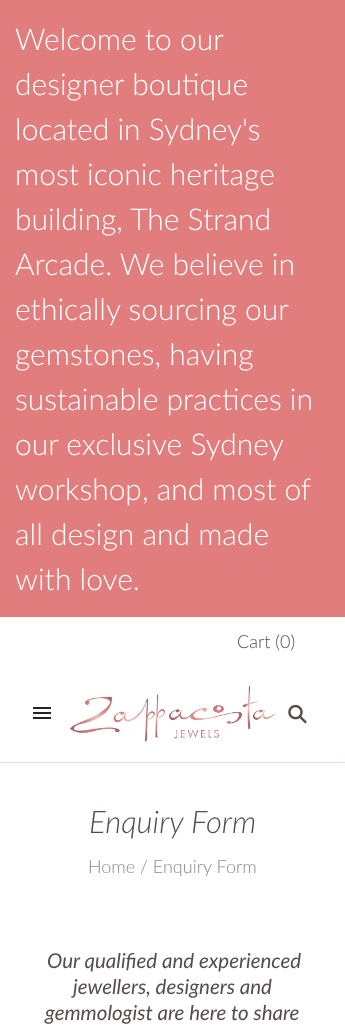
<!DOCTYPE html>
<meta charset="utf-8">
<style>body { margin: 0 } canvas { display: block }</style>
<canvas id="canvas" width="345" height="1027"></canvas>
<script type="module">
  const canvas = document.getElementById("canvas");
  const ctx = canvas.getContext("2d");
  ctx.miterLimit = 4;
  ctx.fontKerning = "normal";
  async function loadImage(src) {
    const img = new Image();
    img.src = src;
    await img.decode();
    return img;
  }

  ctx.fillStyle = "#ffffff";
  ctx.fillRect(0, 0, 345, 1027);
  ctx.fillStyle = "#e17d7d";
  ctx.fillRect(0, 0, 345, 617);
  ctx.font = "300 30px Lato";
  ctx.fillStyle = "#ffffff";
  ctx.fillText("Welcome to our", 15, 50);
  ctx.fillText("designer boutique", 15, 95);
  ctx.fillText("located in Sydney's", 15, 140);
  ctx.fillText("most iconic heritage", 15, 185);
  ctx.fillText("building, The Strand", 15, 230);
  ctx.fillText("Arcade. We believe in", 15, 275);
  ctx.fillText("ethically sourcing our", 15, 320);
  ctx.fillText("gemstones, having", 15, 365);
  ctx.fillText("sustainable practices in", 15, 410);
  ctx.fillText("our exclusive Sydney", 15, 455);
  ctx.fillText("workshop, and most of", 15, 500);
  ctx.fillText("all design and made", 15, 545);
  ctx.fillText("with love.", 15, 590);
  ctx.fillStyle = "#eedddd";
  ctx.fillRect(0, 762, 345, 1);
  ctx.font = "300 18px Lato";
  ctx.fillStyle = "#574b4b";
  ctx.fillText("Cart (0)", 237, 648);
  ctx.drawImage(await loadImage("img1.png"), 33, 707, 18, 12);
  ctx.drawImage(await loadImage("img2.png"), 70, 686, 205, 56);
  ctx.drawImage(await loadImage("img3.png"), 288, 704, 19, 20);
  ctx.font = "italic 300 31px Lato";
  ctx.fillText("Enquiry Form", 89, 833);
  ctx.font = "300 18px Lato";
  ctx.fillStyle = "#8a8a8a";
  ctx.fillText("Home / Enquiry Form", 88, 873);
  ctx.font = "italic 20.5px Lato";
  ctx.fillStyle = "#574b4b";
  ctx.fillText("Our qualified and experienced", 47, 968);
  ctx.fillText("jewellers, designers and", 73, 994);
  ctx.fillText("gemmologist are here to share", 45, 1020);
</script>
